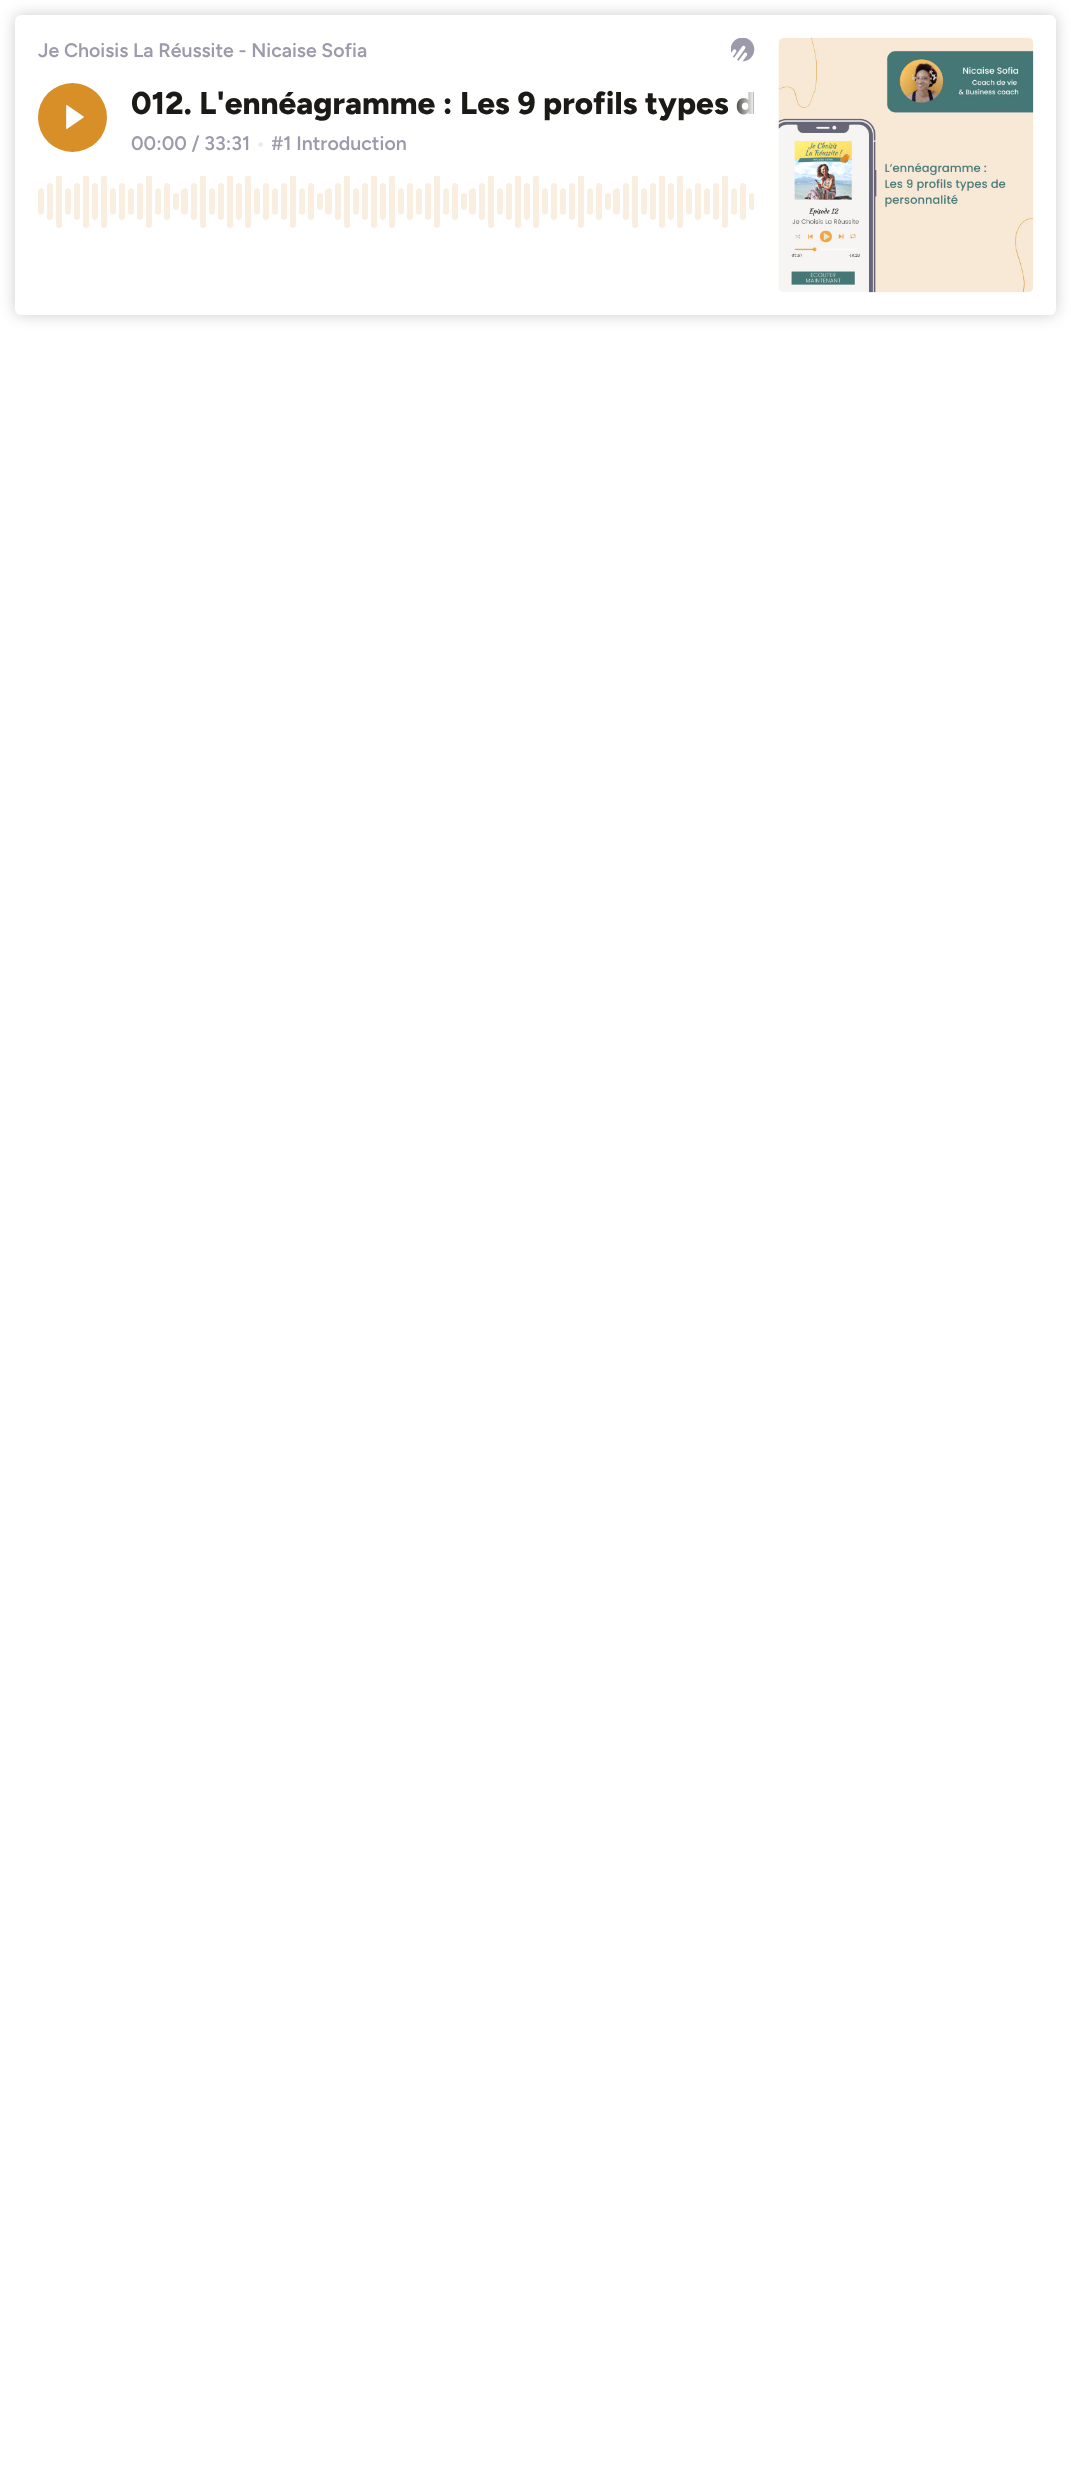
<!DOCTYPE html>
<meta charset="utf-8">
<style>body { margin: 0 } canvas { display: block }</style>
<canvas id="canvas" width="1071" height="2492"></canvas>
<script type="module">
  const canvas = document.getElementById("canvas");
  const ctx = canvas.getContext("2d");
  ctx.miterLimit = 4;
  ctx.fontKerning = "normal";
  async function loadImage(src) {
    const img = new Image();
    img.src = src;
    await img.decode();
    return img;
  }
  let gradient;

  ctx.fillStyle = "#ffffff";
  ctx.fillRect(0, 0, 1071, 2492);
  ctx.fillStyle = "rgba(0, 0, 0, 0.2)";
  ctx.filter = "blur(7.5px)";
  ctx.beginPath();
  ctx.roundRect(15, 15, 1041, 300, 6);
  ctx.fill();
  ctx.filter = "none";
  ctx.fillStyle = "#ffffff";
  ctx.beginPath();
  ctx.roundRect(15, 15, 1041, 300, 6);
  ctx.fill();
  ctx.font = "600 19.5px Figtree";
  ctx.fillStyle = "#9d9aab";
  ctx.fillText("Je Choisis La Réussite - Nicaise Sofia", 38, 57);
  ctx.drawImage(await loadImage("img1.png"), 731, 38, 24, 24);
  ctx.fillStyle = "#d98f28";
  ctx.beginPath();
  ctx.arc(72.5, 117.5, 34.5, 0, Math.PI * 2);
  ctx.fill();
  ctx.drawImage(await loadImage("img2.png"), 66, 105, 18, 24);
  ctx.font = "800 31.5px Figtree";
  ctx.fillStyle = "#1b1a17";
  ctx.fillText("012. L'ennéagramme : Les 9 profils types d", 131, 114);
  gradient = ctx.createLinearGradient(755, 104, 731, 104);
  gradient.addColorStop(0, "#ffffff");
  gradient.addColorStop(1, "rgba(255, 255, 255, 0)");
  ctx.fillStyle = gradient;
  ctx.fillRect(736, 91, 17, 24);
  ctx.font = "600 19.5px Figtree";
  ctx.fillStyle = "#9d9aab";
  ctx.fillText("00:00 / 33:31", 131, 150);
  ctx.fillStyle = "#eae8f3";
  ctx.fillText("•", 256, 150);
  ctx.save();
  ctx.beginPath();
  ctx.rect(272, 131, 135, 27);
  ctx.clip();
  ctx.fillStyle = "#9d9aab";
  ctx.fillText("#1 Introduction", 271, 150);
  ctx.restore();
  ctx.drawImage(await loadImage("img3.png"), 38, 175, 716, 53);
  ctx.drawImage(await loadImage("img4.png"), 778, 37, 256, 256);
</script>
